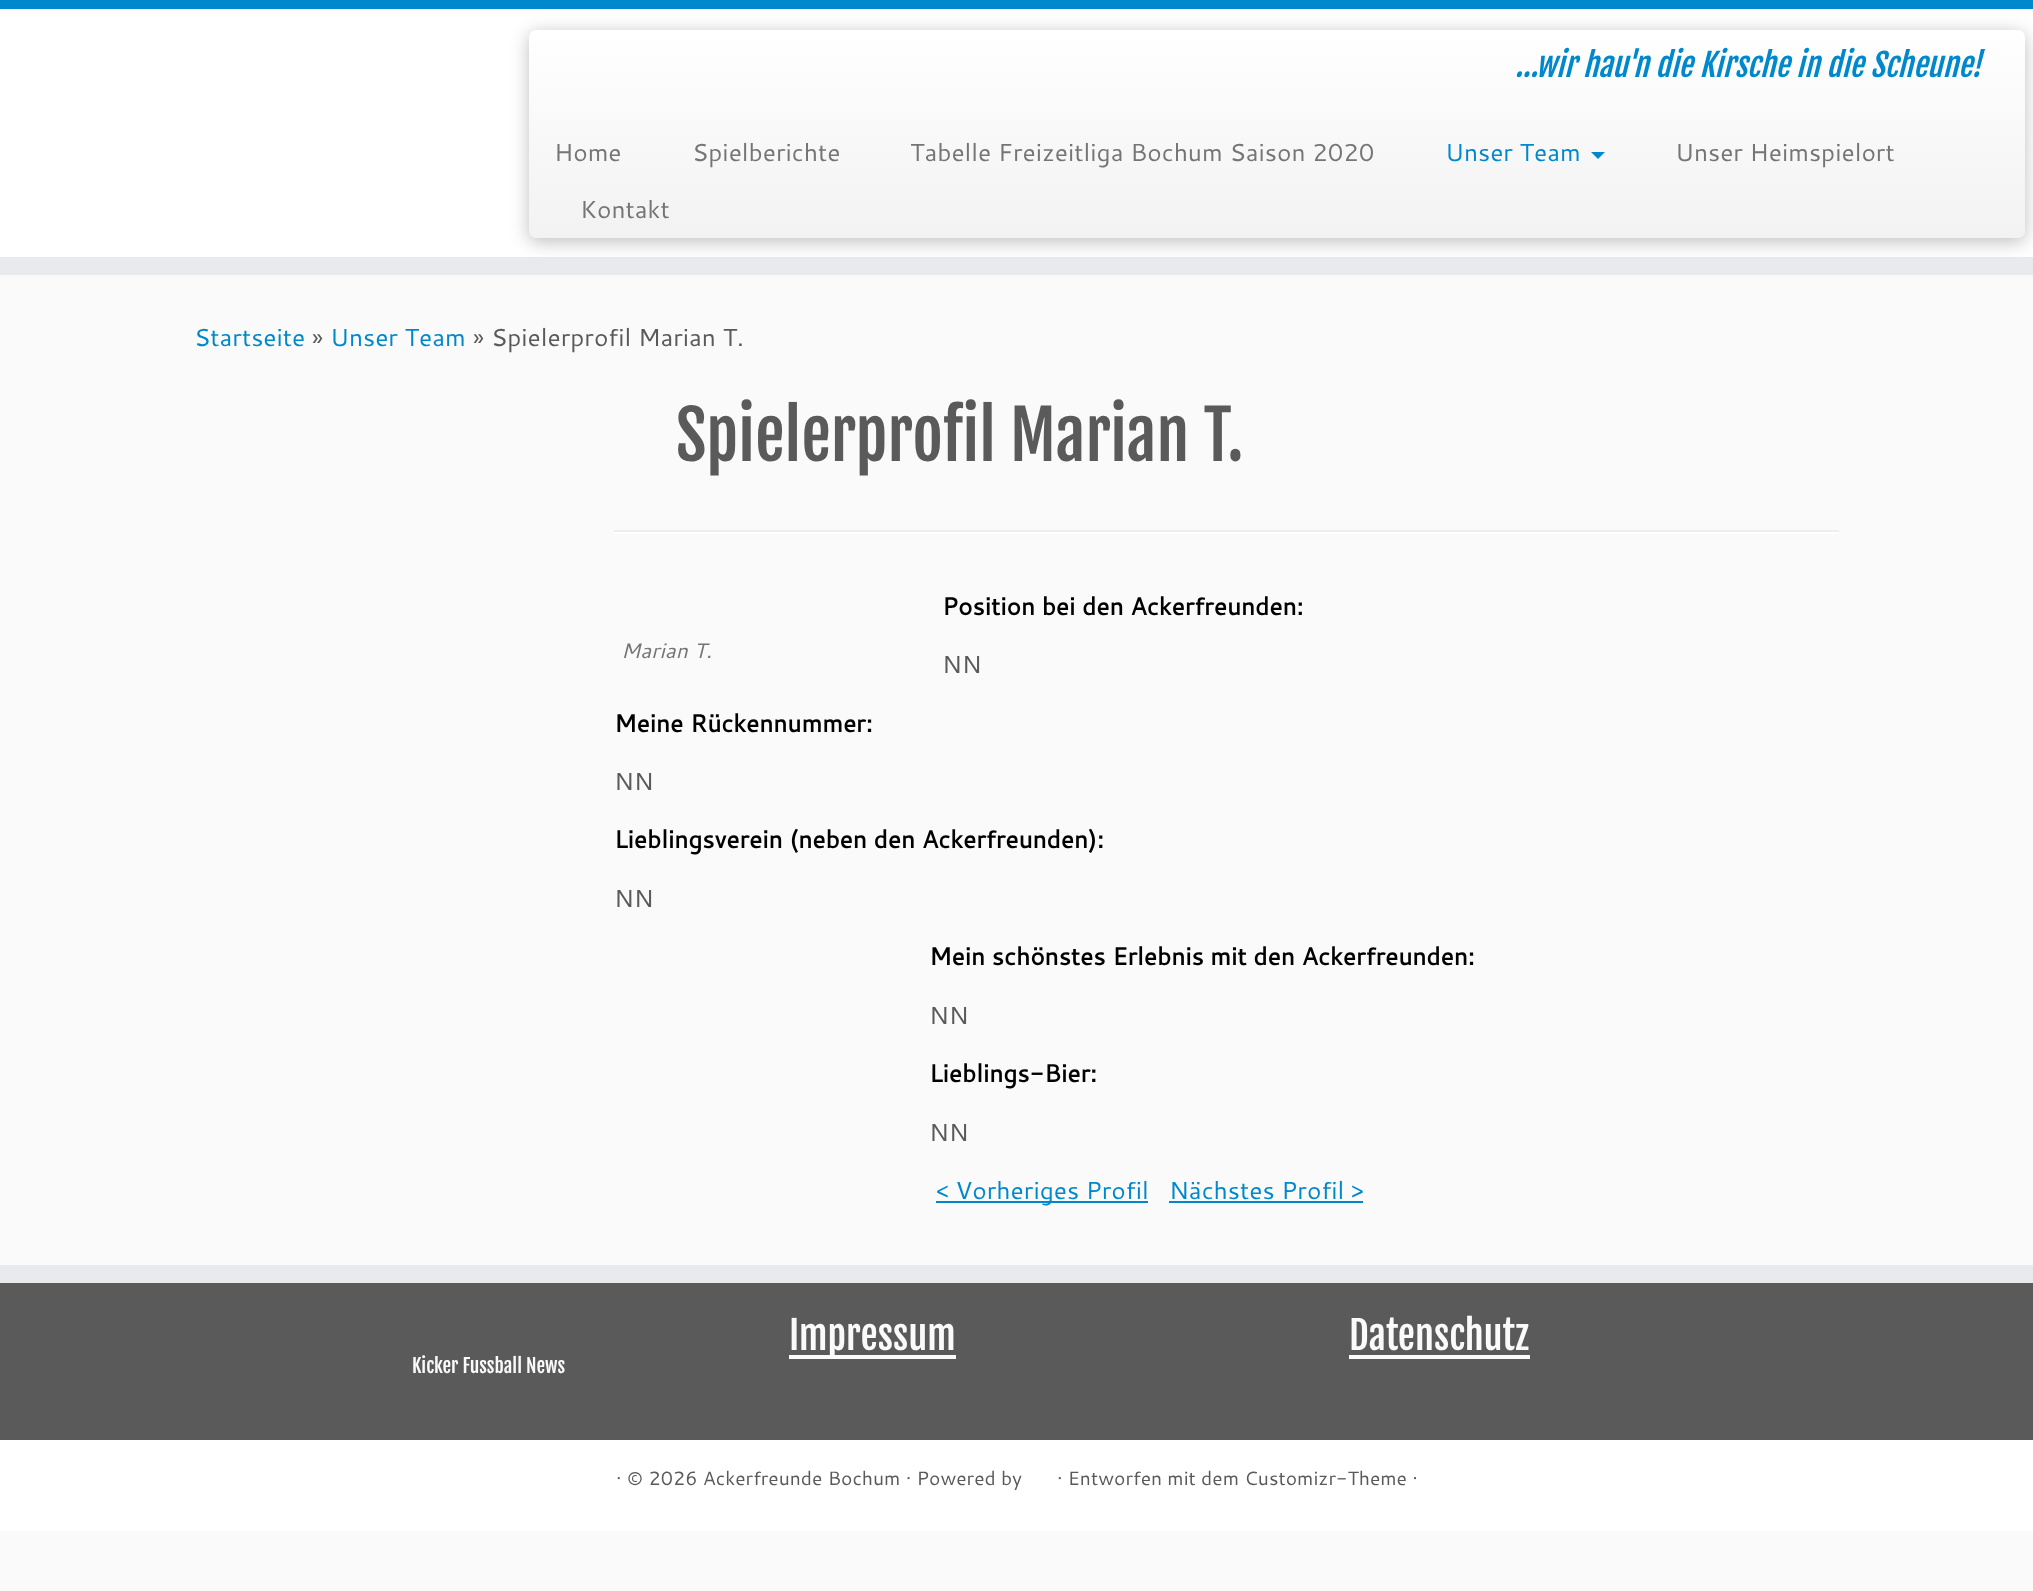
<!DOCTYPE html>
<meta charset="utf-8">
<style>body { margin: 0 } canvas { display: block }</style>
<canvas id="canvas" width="2033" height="1591"></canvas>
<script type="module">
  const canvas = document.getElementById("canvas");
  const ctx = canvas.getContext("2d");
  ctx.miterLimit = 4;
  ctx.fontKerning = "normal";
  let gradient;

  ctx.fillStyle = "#fafafa";
  ctx.fillRect(0, 0, 2033, 1591);
  ctx.fillStyle = "#ffffff";
  ctx.fillRect(0, 9, 2033, 248);
  ctx.fillStyle = "#0088cc";
  ctx.fillRect(0, 0, 2033, 9);
  ctx.fillStyle = "#e9eaee";
  ctx.fillRect(0, 257, 2033, 18);
  ctx.fillStyle = "rgba(0, 0, 0, 0.25)";
  ctx.filter = "blur(9px)";
  ctx.beginPath();
  ctx.roundRect(529, 33, 1496, 209, 7);
  ctx.fill();
  ctx.filter = "none";
  gradient = ctx.createLinearGradient(1277, 30, 1277, 238);
  gradient.addColorStop(0, "#ffffff");
  gradient.addColorStop(1, "#f2f2f2");
  ctx.fillStyle = gradient;
  ctx.beginPath();
  ctx.roundRect(529, 30, 1496, 208, 7);
  ctx.fill();
  ctx.font = "italic 31.5px Fjalla One";
  ctx.fillStyle = "#0088cc";
  ctx.fillText("…wir hau'n die Kirsche in die Scheune!", 1515, 77);
  ctx.font = "24.5px Cantarell";
  ctx.fillStyle = "#757575";
  ctx.fillText("Home", 554, 161);
  ctx.fillText("Spielberichte", 692, 161);
  ctx.fillText("Tabelle Freizeitliga Bochum Saison 2020", 910, 161);
  ctx.fillStyle = "#0088cc";
  ctx.fillText("Unser Team", 1445, 161);
  ctx.beginPath();
  ctx.moveTo(1591, 152);
  ctx.lineTo(1605, 152);
  ctx.lineTo(1598, 159);
  ctx.closePath();
  ctx.fill();
  ctx.fillStyle = "#757575";
  ctx.fillText("Unser Heimspielort", 1675, 161);
  ctx.fillText("Kontakt", 580, 218);
  ctx.fillStyle = "#0088cc";
  ctx.fillText("Startseite", 194, 346);
  ctx.fillStyle = "#5a5a5a";
  ctx.fillText("»", 312, 346);
  ctx.fillStyle = "#0088cc";
  ctx.fillText("Unser Team", 330, 346);
  ctx.fillStyle = "#5a5a5a";
  ctx.fillText("» Spielerprofil Marian T.", 473, 346);
  ctx.font = "66.5px Fjalla One";
  ctx.fillText("Spielerprofil Marian T.", 676, 461);
  ctx.fillStyle = "#eeeeee";
  ctx.fillRect(614, 530, 1225, 2);
  ctx.fillStyle = "#ffffff";
  ctx.fillRect(614, 532, 1225, 2);
  ctx.font = "bold 24.5px Cantarell";
  ctx.fillStyle = "#000000";
  ctx.fillText("Position bei den Ackerfreunden:", 942, 615);
  ctx.font = "italic 21px Cantarell";
  ctx.fillStyle = "#757575";
  ctx.fillText("Marian T.", 621, 658);
  ctx.font = "24.5px Cantarell";
  ctx.fillStyle = "#5a5a5a";
  ctx.fillText("NN", 942, 673);
  ctx.font = "bold 24.5px Cantarell";
  ctx.fillStyle = "#000000";
  ctx.fillText("Meine Rückennummer:", 614, 732);
  ctx.font = "24.5px Cantarell";
  ctx.fillStyle = "#5a5a5a";
  ctx.fillText("NN", 614, 790);
  ctx.font = "bold 24.5px Cantarell";
  ctx.fillStyle = "#000000";
  ctx.fillText("Lieblingsverein (neben den Ackerfreunden):", 614, 848);
  ctx.font = "24.5px Cantarell";
  ctx.fillStyle = "#5a5a5a";
  ctx.fillText("NN", 614, 907);
  ctx.font = "bold 24.5px Cantarell";
  ctx.fillStyle = "#000000";
  ctx.fillText("Mein schönstes Erlebnis mit den Ackerfreunden:", 929, 965);
  ctx.font = "24.5px Cantarell";
  ctx.fillStyle = "#5a5a5a";
  ctx.fillText("NN", 929, 1024);
  ctx.font = "bold 24.5px Cantarell";
  ctx.fillStyle = "#000000";
  ctx.fillText("Lieblings-Bier:", 929, 1082);
  ctx.font = "24.5px Cantarell";
  ctx.fillStyle = "#5a5a5a";
  ctx.fillText("NN", 929, 1141);
  ctx.fillStyle = "#0088cc";
  ctx.fillRect(936, 1201, 212, 2);
  ctx.fillText("< Vorheriges Profil", 936, 1199);
  ctx.fillText("Nächstes Profil >", 1169, 1199);
  ctx.fillRect(1169, 1201, 194, 2);
  ctx.fillStyle = "#5a5a5a";
  ctx.fillRect(0, 1283, 2033, 157);
  ctx.fillStyle = "#e9eaee";
  ctx.fillRect(0, 1265, 2033, 18);
  ctx.fillStyle = "#fafafa";
  ctx.fillRect(789, 1355, 167, 4);
  ctx.font = "38.5px Fjalla One";
  ctx.fillText("Impressum", 789, 1350);
  ctx.fillText("Datenschutz", 1349, 1350);
  ctx.fillRect(1349, 1355, 181, 4);
  ctx.font = "19.25px Fjalla One";
  ctx.fillText("Kicker Fussball News", 412, 1373);
  ctx.fillStyle = "#ffffff";
  ctx.fillRect(0, 1440, 2033, 91);
  ctx.font = "19.25px Cantarell";
  ctx.fillStyle = "#5a5a5a";
  ctx.fillText("· © 2026 Ackerfreunde Bochum · Powered by", 616, 1485);
  ctx.fillText("· Entworfen mit dem Customizr-Theme ·", 1057, 1485);
</script>
